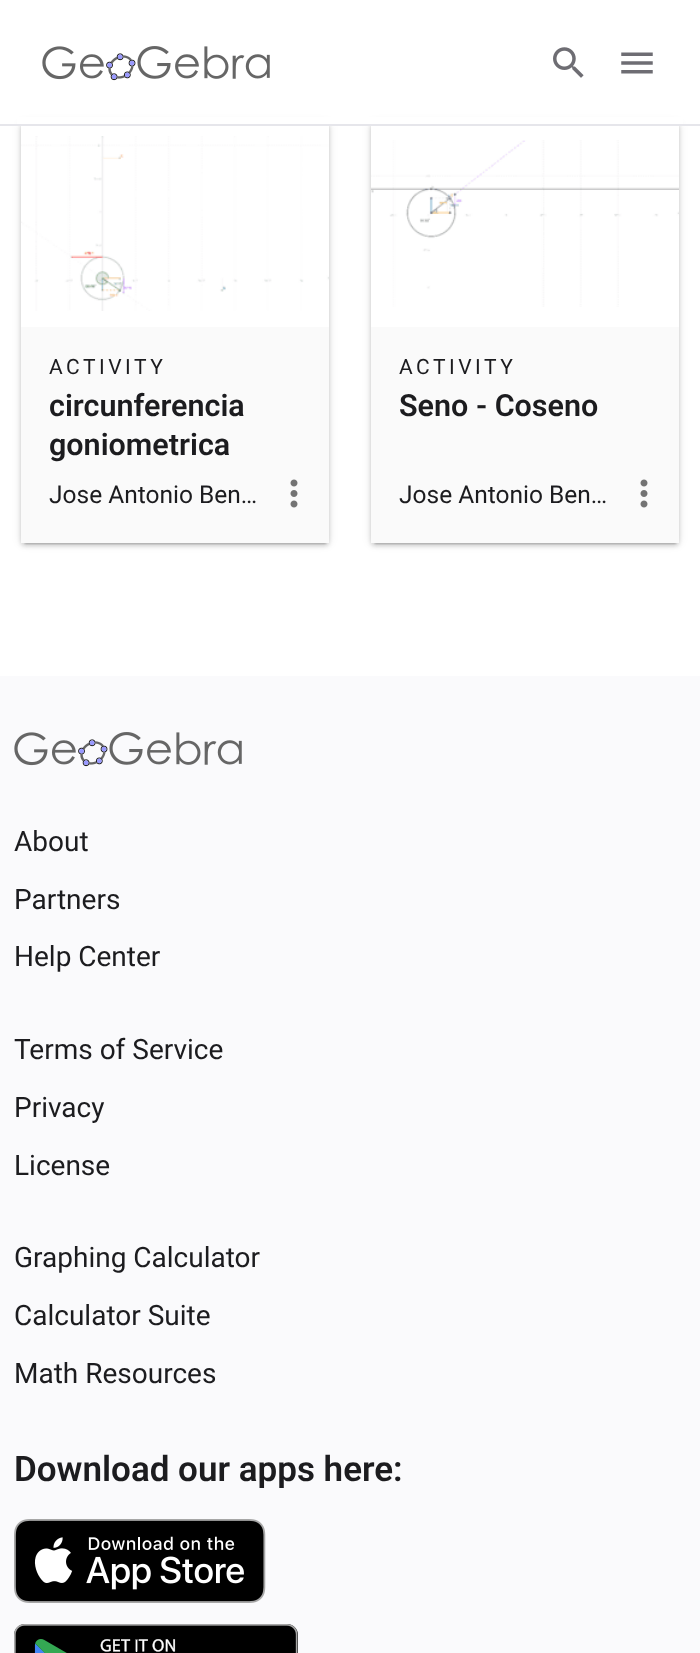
<!DOCTYPE html>
<meta charset="utf-8">
<style>body { margin: 0 } canvas { display: block }</style>
<canvas id="canvas" width="700" height="1653"></canvas>
<script type="module">
  const canvas = document.getElementById("canvas");
  const ctx = canvas.getContext("2d");
  ctx.miterLimit = 4;
  ctx.fontKerning = "normal";
  async function loadImage(src) {
    const img = new Image();
    img.src = src;
    await img.decode();
    return img;
  }

  ctx.fillStyle = "#ffffff";
  ctx.fillRect(0, 0, 700, 1653);
  ctx.save();
  ctx.beginPath();
  ctx.moveTo(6, 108);
  ctx.lineTo(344, 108);
  ctx.lineTo(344, 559);
  ctx.lineTo(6, 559);
  ctx.closePath();
  ctx.moveTo(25, 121);
  ctx.lineTo(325, 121);
  ctx.bezierCurveTo(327, 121, 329, 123, 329, 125);
  ctx.lineTo(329, 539);
  ctx.bezierCurveTo(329, 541, 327, 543, 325, 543);
  ctx.lineTo(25, 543);
  ctx.bezierCurveTo(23, 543, 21, 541, 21, 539);
  ctx.lineTo(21, 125);
  ctx.bezierCurveTo(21, 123, 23, 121, 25, 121);
  ctx.closePath();
  ctx.clip("evenodd");
  ctx.fillStyle = "rgba(0, 0, 0, 0.12)";
  ctx.filter = "blur(4.5px)";
  ctx.beginPath();
  ctx.roundRect(21, 123, 308, 421, 4);
  ctx.fill();
  ctx.filter = "none";
  ctx.restore();
  ctx.save();
  ctx.beginPath();
  ctx.moveTo(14, 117);
  ctx.lineTo(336, 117);
  ctx.lineTo(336, 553);
  ctx.lineTo(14, 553);
  ctx.closePath();
  ctx.moveTo(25, 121);
  ctx.lineTo(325, 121);
  ctx.bezierCurveTo(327, 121, 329, 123, 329, 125);
  ctx.lineTo(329, 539);
  ctx.bezierCurveTo(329, 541, 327, 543, 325, 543);
  ctx.lineTo(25, 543);
  ctx.bezierCurveTo(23, 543, 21, 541, 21, 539);
  ctx.lineTo(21, 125);
  ctx.bezierCurveTo(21, 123, 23, 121, 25, 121);
  ctx.closePath();
  ctx.clip("evenodd");
  ctx.fillStyle = "rgba(0, 0, 0, 0.14)";
  ctx.filter = "blur(2px)";
  ctx.beginPath();
  ctx.roundRect(21, 124, 308, 422, 4);
  ctx.fill();
  ctx.filter = "none";
  ctx.restore();
  ctx.save();
  ctx.beginPath();
  ctx.moveTo(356, 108);
  ctx.lineTo(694, 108);
  ctx.lineTo(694, 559);
  ctx.lineTo(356, 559);
  ctx.closePath();
  ctx.moveTo(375, 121);
  ctx.lineTo(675, 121);
  ctx.bezierCurveTo(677, 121, 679, 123, 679, 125);
  ctx.lineTo(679, 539);
  ctx.bezierCurveTo(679, 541, 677, 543, 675, 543);
  ctx.lineTo(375, 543);
  ctx.bezierCurveTo(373, 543, 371, 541, 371, 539);
  ctx.lineTo(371, 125);
  ctx.bezierCurveTo(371, 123, 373, 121, 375, 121);
  ctx.closePath();
  ctx.clip("evenodd");
  ctx.fillStyle = "rgba(0, 0, 0, 0.12)";
  ctx.filter = "blur(4.5px)";
  ctx.beginPath();
  ctx.roundRect(371, 123, 308, 421, 4);
  ctx.fill();
  ctx.filter = "none";
  ctx.restore();
  ctx.save();
  ctx.beginPath();
  ctx.moveTo(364, 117);
  ctx.lineTo(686, 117);
  ctx.lineTo(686, 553);
  ctx.lineTo(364, 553);
  ctx.closePath();
  ctx.moveTo(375, 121);
  ctx.lineTo(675, 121);
  ctx.bezierCurveTo(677, 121, 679, 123, 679, 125);
  ctx.lineTo(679, 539);
  ctx.bezierCurveTo(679, 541, 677, 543, 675, 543);
  ctx.lineTo(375, 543);
  ctx.bezierCurveTo(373, 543, 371, 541, 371, 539);
  ctx.lineTo(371, 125);
  ctx.bezierCurveTo(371, 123, 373, 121, 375, 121);
  ctx.closePath();
  ctx.clip("evenodd");
  ctx.fillStyle = "rgba(0, 0, 0, 0.14)";
  ctx.filter = "blur(2px)";
  ctx.beginPath();
  ctx.roundRect(371, 124, 308, 422, 4);
  ctx.fill();
  ctx.filter = "none";
  ctx.restore();
  ctx.fillRect(17, 117, 666, 7);
  ctx.fillStyle = "#e6e6eb";
  ctx.fillRect(0, 124, 700, 2);
  ctx.drawImage(await loadImage("img1.png"), 42, 46, 228, 35);
  ctx.drawImage(await loadImage("img2.png"), 553, 47, 31, 31);
  ctx.drawImage(await loadImage("img3.png"), 621, 52, 32, 22);
  ctx.save();
  ctx.beginPath();
  ctx.rect(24, 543, 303, 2);
  ctx.clip();
  ctx.fillStyle = "rgba(0, 0, 0, 0.2)";
  ctx.filter = "blur(1px)";
  ctx.beginPath();
  ctx.rect(25, 130, 301, 414);
  ctx.fill();
  ctx.filter = "none";
  ctx.restore();
  ctx.drawImage(await loadImage("img4.png"), 21, 136, 308, 175);
  ctx.fillStyle = "#fafafa";
  ctx.fillRect(21, 327, 308, 216);
  ctx.letterSpacing = "3.5px";
  ctx.font = "21px Roboto";
  ctx.fillStyle = "#1c1c1f";
  ctx.fillText("ACTIVITY", 49, 374);
  ctx.letterSpacing = "0px";
  ctx.font = "600 30.5px Roboto";
  ctx.fillText("circunferencia", 49, 416);
  ctx.fillText("goniometrica", 49, 455);
  ctx.font = "24.5px Roboto";
  ctx.fillText("Jose Antonio Ben…", 49, 503);
  ctx.drawImage(await loadImage("img5.png"), 290, 479, 8, 29);
  ctx.save();
  ctx.beginPath();
  ctx.rect(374, 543, 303, 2);
  ctx.clip();
  ctx.fillStyle = "rgba(0, 0, 0, 0.2)";
  ctx.filter = "blur(1px)";
  ctx.beginPath();
  ctx.rect(375, 130, 301, 414);
  ctx.fill();
  ctx.filter = "none";
  ctx.restore();
  ctx.drawImage(await loadImage("img6.png"), 371, 140, 308, 167);
  ctx.fillStyle = "#fafafa";
  ctx.fillRect(371, 327, 308, 216);
  ctx.letterSpacing = "3.5px";
  ctx.font = "21px Roboto";
  ctx.fillStyle = "#1c1c1f";
  ctx.fillText("ACTIVITY", 399, 374);
  ctx.letterSpacing = "0px";
  ctx.font = "600 30.5px Roboto";
  ctx.fillText("Seno - Coseno", 399, 416);
  ctx.font = "24.5px Roboto";
  ctx.fillText("Jose Antonio Ben…", 399, 503);
  ctx.drawImage(await loadImage("img5.png"), 640, 479, 8, 29);
  ctx.fillStyle = "#fafafc";
  ctx.fillRect(0, 676, 700, 977);
  ctx.drawImage(await loadImage("img7.png"), 14, 732, 228, 35);
  ctx.font = "28px Roboto";
  ctx.fillStyle = "#1c1c1f";
  ctx.fillText("About", 14, 851);
  ctx.fillText("Partners", 14, 909);
  ctx.fillText("Help Center", 14, 966);
  ctx.fillText("Terms of Service", 14, 1059);
  ctx.fillText("Privacy", 14, 1117);
  ctx.fillText("License", 14, 1175);
  ctx.fillText("Graphing Calculator", 14, 1267);
  ctx.fillText("Calculator Suite", 14, 1325);
  ctx.fillText("Math Resources", 14, 1383);
  ctx.font = "600 35px Roboto";
  ctx.fillText("Download our apps here:", 14, 1481);
  ctx.drawImage(await loadImage("img8.png"), 14, 1519, 252, 84);
  ctx.drawImage(await loadImage("img9.png"), 14, 1624, 284, 29);
</script>
